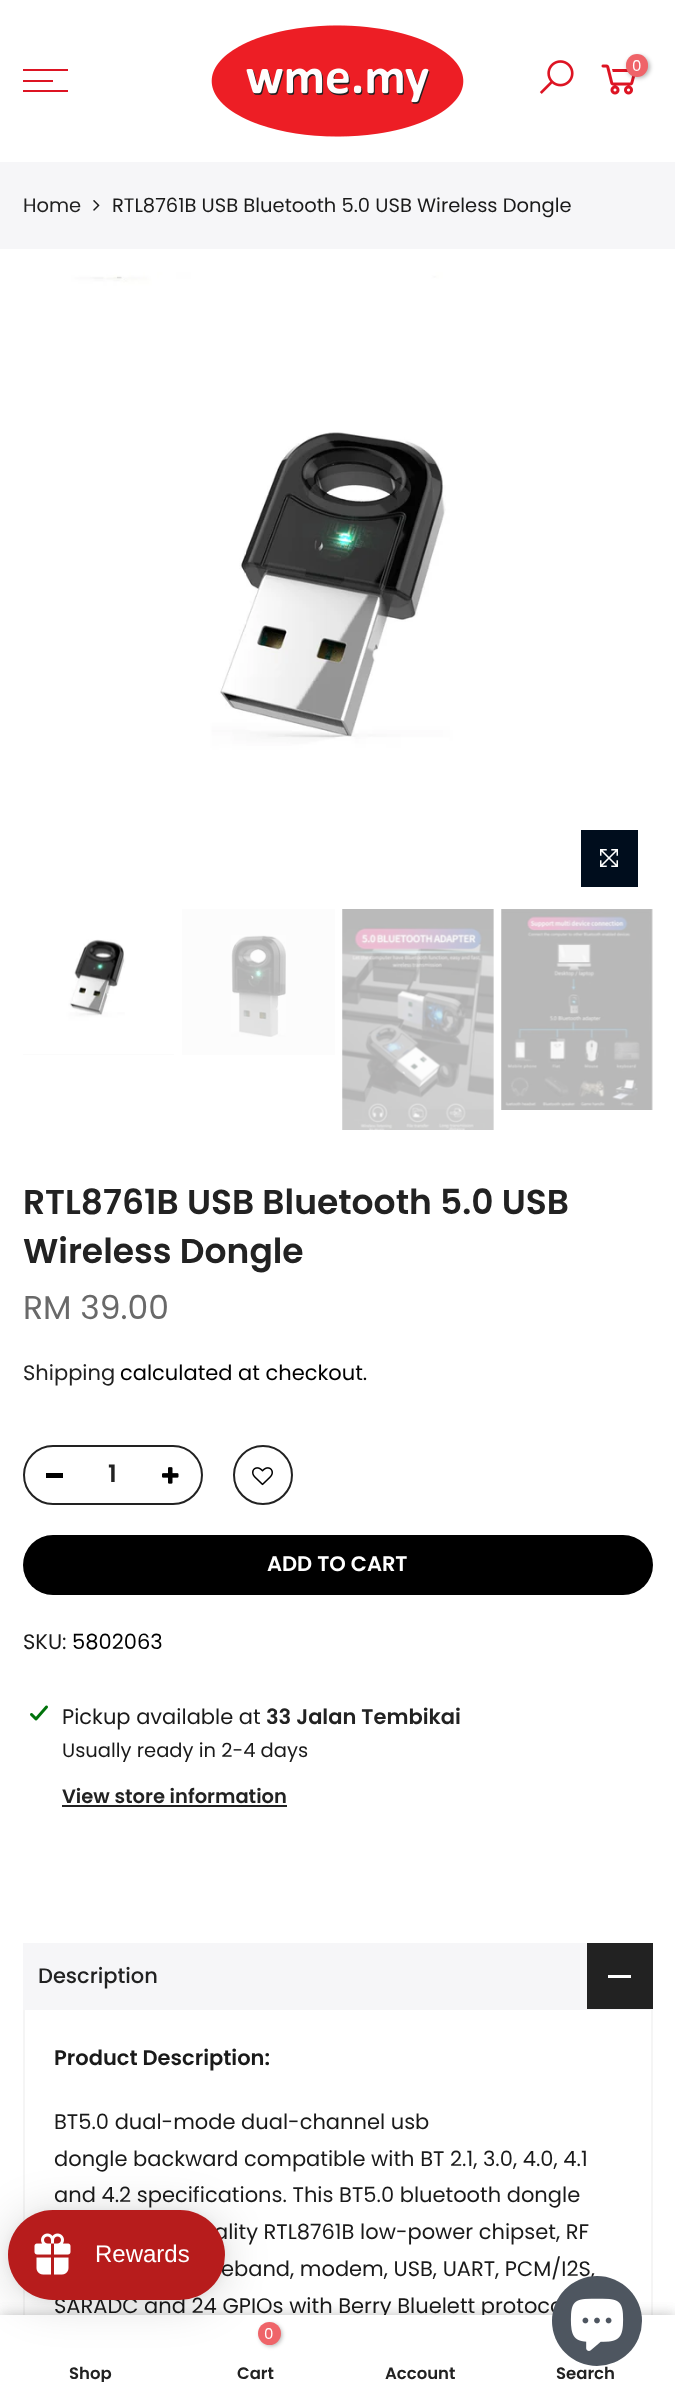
<!DOCTYPE html>
<meta charset="utf-8">
<style>body { margin: 0 } canvas { display: block }</style>
<canvas id="canvas" width="675" height="2396"></canvas>
<script type="module">
  const canvas = document.getElementById("canvas");
  const ctx = canvas.getContext("2d");
  ctx.miterLimit = 4;
  ctx.fontKerning = "normal";
  async function loadImage(src) {
    const img = new Image();
    img.src = src;
    await img.decode();
    return img;
  }

  ctx.fillStyle = "#ffffff";
  ctx.fillRect(0, 0, 675, 2396);
  ctx.drawImage(await loadImage("img1.png"), 211, 25, 253, 112);
  ctx.drawImage(await loadImage("img2.png"), 539, 60, 35, 34);
  ctx.drawImage(await loadImage("img3.png"), 601, 64, 35, 31);
  ctx.fillStyle = "rgba(0, 0, 0, 0.3)";
  ctx.filter = "blur(2px)";
  ctx.beginPath();
  ctx.roundRect(627, 56, 23, 22, 11);
  ctx.fill();
  ctx.filter = "none";
  ctx.fillStyle = "#ef6469";
  ctx.beginPath();
  ctx.roundRect(626, 54, 22, 23, 11);
  ctx.fill();
  ctx.font = "15px Poppins";
  ctx.fillStyle = "#ffffff";
  ctx.fillText("0", 632, 71);
  ctx.fillStyle = "#dd1423";
  ctx.fillRect(23, 69, 45, 2);
  ctx.fillRect(23, 80, 30, 2);
  ctx.fillRect(23, 90, 45, 2);
  ctx.fillStyle = "#f6f6f8";
  ctx.fillRect(0, 162, 675, 87);
  ctx.font = "19.5px Poppins";
  ctx.fillStyle = "#222222";
  ctx.fillText("Home", 23, 212);
  ctx.drawImage(await loadImage("img4.png"), 93, 200, 7, 11);
  ctx.fillStyle = "#1a1a1a";
  ctx.fillText("RTL8761B USB Bluetooth 5.0 USB Wireless Dongle", 112, 212);
  ctx.drawImage(await loadImage("img5.png"), 23, 272, 630, 630);
  ctx.fillStyle = "#000d1d";
  ctx.fillRect(581, 830, 57, 57);
  ctx.drawImage(await loadImage("img6.png"), 600, 849, 18, 18);
  ctx.fillStyle = "#f5f5f5";
  ctx.fillRect(23, 1054, 151, 1);
  ctx.drawImage(await loadImage("img7.png"), 23, 909, 151, 146);
  ctx.fillStyle = "#fcfcfc";
  ctx.fillRect(182, 909, 153, 146);
  ctx.drawImage(await loadImage("img8.png"), 231, 935, 55, 102);
  ctx.fillRect(342, 909, 152, 221);
  ctx.drawImage(await loadImage("img9.png"), 342, 909, 152, 221);
  ctx.fillRect(501, 909, 152, 201);
  ctx.drawImage(await loadImage("img10.png"), 501, 909, 152, 201);
  ctx.font = "600 34.5px Poppins";
  ctx.fillStyle = "#222222";
  ctx.fillText("RTL8761B USB Bluetooth 5.0 USB", 23, 1214);
  ctx.fillText("Wireless Dongle", 23, 1263);
  ctx.font = "33px Poppins";
  ctx.fillStyle = "#696969";
  ctx.fillText("RM 39.00", 23, 1319);
  ctx.font = "21px Poppins";
  ctx.fillStyle = "#222222";
  ctx.fillText("Shipping", 23, 1380);
  ctx.fillStyle = "#000000";
  ctx.fillText("calculated at checkout.", 120, 1380);
  ctx.beginPath();
  ctx.roundRect(24, 1446, 178, 58, 29);
  ctx.strokeStyle = "#222222";
  ctx.lineWidth = 2;
  ctx.stroke();
  ctx.font = "600 24px Poppins";
  ctx.fillStyle = "#222222";
  ctx.fillText("1", 108, 1482);
  ctx.fillStyle = "#000000";
  ctx.fillRect(46, 1473, 17, 5);
  ctx.drawImage(await loadImage("img11.png"), 162, 1467, 17, 17);
  ctx.beginPath();
  ctx.arc(263, 1475, 29, 0, Math.PI * 2);
  ctx.stroke();
  ctx.drawImage(await loadImage("img12.png"), 252, 1467, 21, 19);
  ctx.beginPath();
  ctx.moveTo(253.5, 1467);
  ctx.bezierCurveTo(256.5, 1464, 261, 1462.5, 265, 1463.5);
  ctx.bezierCurveTo(280, 1466.5, 277.5, 1489, 262.5, 1489);
  ctx.bezierCurveTo(259, 1488.5, 256, 1487.5, 253.5, 1485);
  ctx.moveTo(253.5, 1485);
  ctx.bezierCurveTo(248.5, 1480, 248.5, 1472, 253.5, 1467);
  ctx.strokeStyle = "#ffffff";
  ctx.lineWidth = 1.5;
  ctx.stroke();
  ctx.beginPath();
  ctx.roundRect(23, 1535, 630, 60, 30);
  ctx.fill();
  ctx.font = "600 21px Poppins";
  ctx.fillStyle = "#ffffff";
  ctx.fillText("ADD TO CART", 267, 1571);
  ctx.font = "21px Poppins";
  ctx.fillStyle = "#1a1a1a";
  ctx.fillText("SKU:", 23, 1649);
  ctx.fillStyle = "#000000";
  ctx.fillText("5802063", 72, 1649);
  ctx.drawImage(await loadImage("img13.png"), 30, 1705, 18, 16);
  ctx.fillStyle = "#1a1a1a";
  ctx.fillText("Pickup available at", 62, 1724);
  ctx.font = "600 21px Poppins";
  ctx.fillStyle = "#222222";
  ctx.fillText("33 Jalan Tembikai", 266, 1724);
  ctx.font = "19.5px Poppins";
  ctx.fillStyle = "#1a1a1a";
  ctx.fillText("Usually ready in 2-4 days", 62, 1757);
  ctx.font = "600 19.5px Poppins";
  ctx.fillStyle = "#222222";
  ctx.fillText("View store information", 62, 1803);
  ctx.fillRect(62, 1805, 225, 2);
  ctx.fillStyle = "#f6f6f8";
  ctx.fillRect(23, 1943, 630, 67);
  ctx.font = "500 21px Poppins";
  ctx.fillStyle = "#222222";
  ctx.fillText("Description", 38, 1983);
  ctx.fillRect(587, 1943, 66, 66);
  ctx.fillStyle = "#ffffff";
  ctx.fillRect(608, 1975, 23, 3);
  ctx.fillStyle = "#f5f5f5";
  ctx.fillRect(651, 2010, 2, 305);
  ctx.fillRect(23, 2010, 2, 305);
  ctx.font = "600 21px Poppins";
  ctx.fillStyle = "#1a1a1a";
  ctx.fillText("Product Description:", 54, 2065);
  ctx.font = "21px Poppins";
  ctx.fillText("BT5.0 dual-mode dual-channel usb", 54, 2129);
  ctx.fillText("dongle backward compatible with BT 2.1, 3.0, 4.0, 4.1", 54, 2166);
  ctx.fillText("and 4.2 specifications. This BT5.0 bluetooth dongle", 54, 2202);
  ctx.fillText("ality RTL8761B low-power chipset, RF", 214, 2239);
  ctx.fillText("eband, modem, USB, UART, PCM/I2S,", 221, 2276);
  ctx.fillText("SARADC and 24 GPIOs with Berry Bluelett protoco", 54, 2313);
  ctx.fillStyle = "rgba(0, 0, 0, 0.12)";
  ctx.filter = "blur(7px)";
  ctx.beginPath();
  ctx.rect(0, 2315, 675, 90);
  ctx.fill();
  ctx.filter = "none";
  ctx.filter = "blur(7px)";
  ctx.beginPath();
  ctx.rect(0, 2315, 675, 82);
  ctx.fill();
  ctx.filter = "none";
  ctx.fillStyle = "#ffffff";
  ctx.fillRect(0, 2315, 675, 81);
  ctx.fillStyle = "rgba(0, 0, 0, 0.3)";
  ctx.filter = "blur(2px)";
  ctx.beginPath();
  ctx.roundRect(260, 2324, 22, 22, 11);
  ctx.fill();
  ctx.filter = "none";
  ctx.fillStyle = "#ef6469";
  ctx.beginPath();
  ctx.arc(269.5, 2333.5, 11.5, 0, Math.PI * 2);
  ctx.fill();
  ctx.fillStyle = "rgba(0, 0, 0, 0.15)";
  ctx.filter = "blur(22.5px)";
  ctx.beginPath();
  ctx.roundRect(8, 2213, 217, 90, 45);
  ctx.fill();
  ctx.filter = "none";
  ctx.fillStyle = "rgba(0, 0, 0, 0.05)";
  ctx.filter = "blur(4.5px)";
  ctx.beginPath();
  ctx.roundRect(8, 2211, 217, 90, 45);
  ctx.fill();
  ctx.filter = "none";
  ctx.fillStyle = "#b71c1c";
  ctx.beginPath();
  ctx.roundRect(8, 2210, 217, 90, 45);
  ctx.fill();
  ctx.drawImage(await loadImage("img14.png"), 34, 2233, 37, 42);
  ctx.font = "24px Liberation Sans";
  ctx.fillStyle = "#ffffff";
  ctx.fillText("Rewards", 95, 2262);
  ctx.fillStyle = "#4e5660";
  ctx.beginPath();
  ctx.arc(597, 2321, 45, 0, Math.PI * 2);
  ctx.fill();
  ctx.drawImage(await loadImage("img15.png"), 570, 2298, 54, 53);
  ctx.save();
  ctx.beginPath();
  ctx.rect(23, 2366, 135, 16);
  ctx.clip();
  ctx.font = "600 16.5px Poppins";
  ctx.fillStyle = "#222222";
  ctx.fillText("Shop", 69, 2379);
  ctx.restore();
  ctx.font = "15px Poppins";
  ctx.fillStyle = "#ffffff";
  ctx.fillText("0", 264, 2339);
  ctx.font = "600 16.5px Poppins";
  ctx.fillStyle = "#222222";
  ctx.fillText("Cart", 237, 2379);
  ctx.fillText("Account", 385, 2379);
  ctx.fillText("Search", 556, 2379);
</script>
